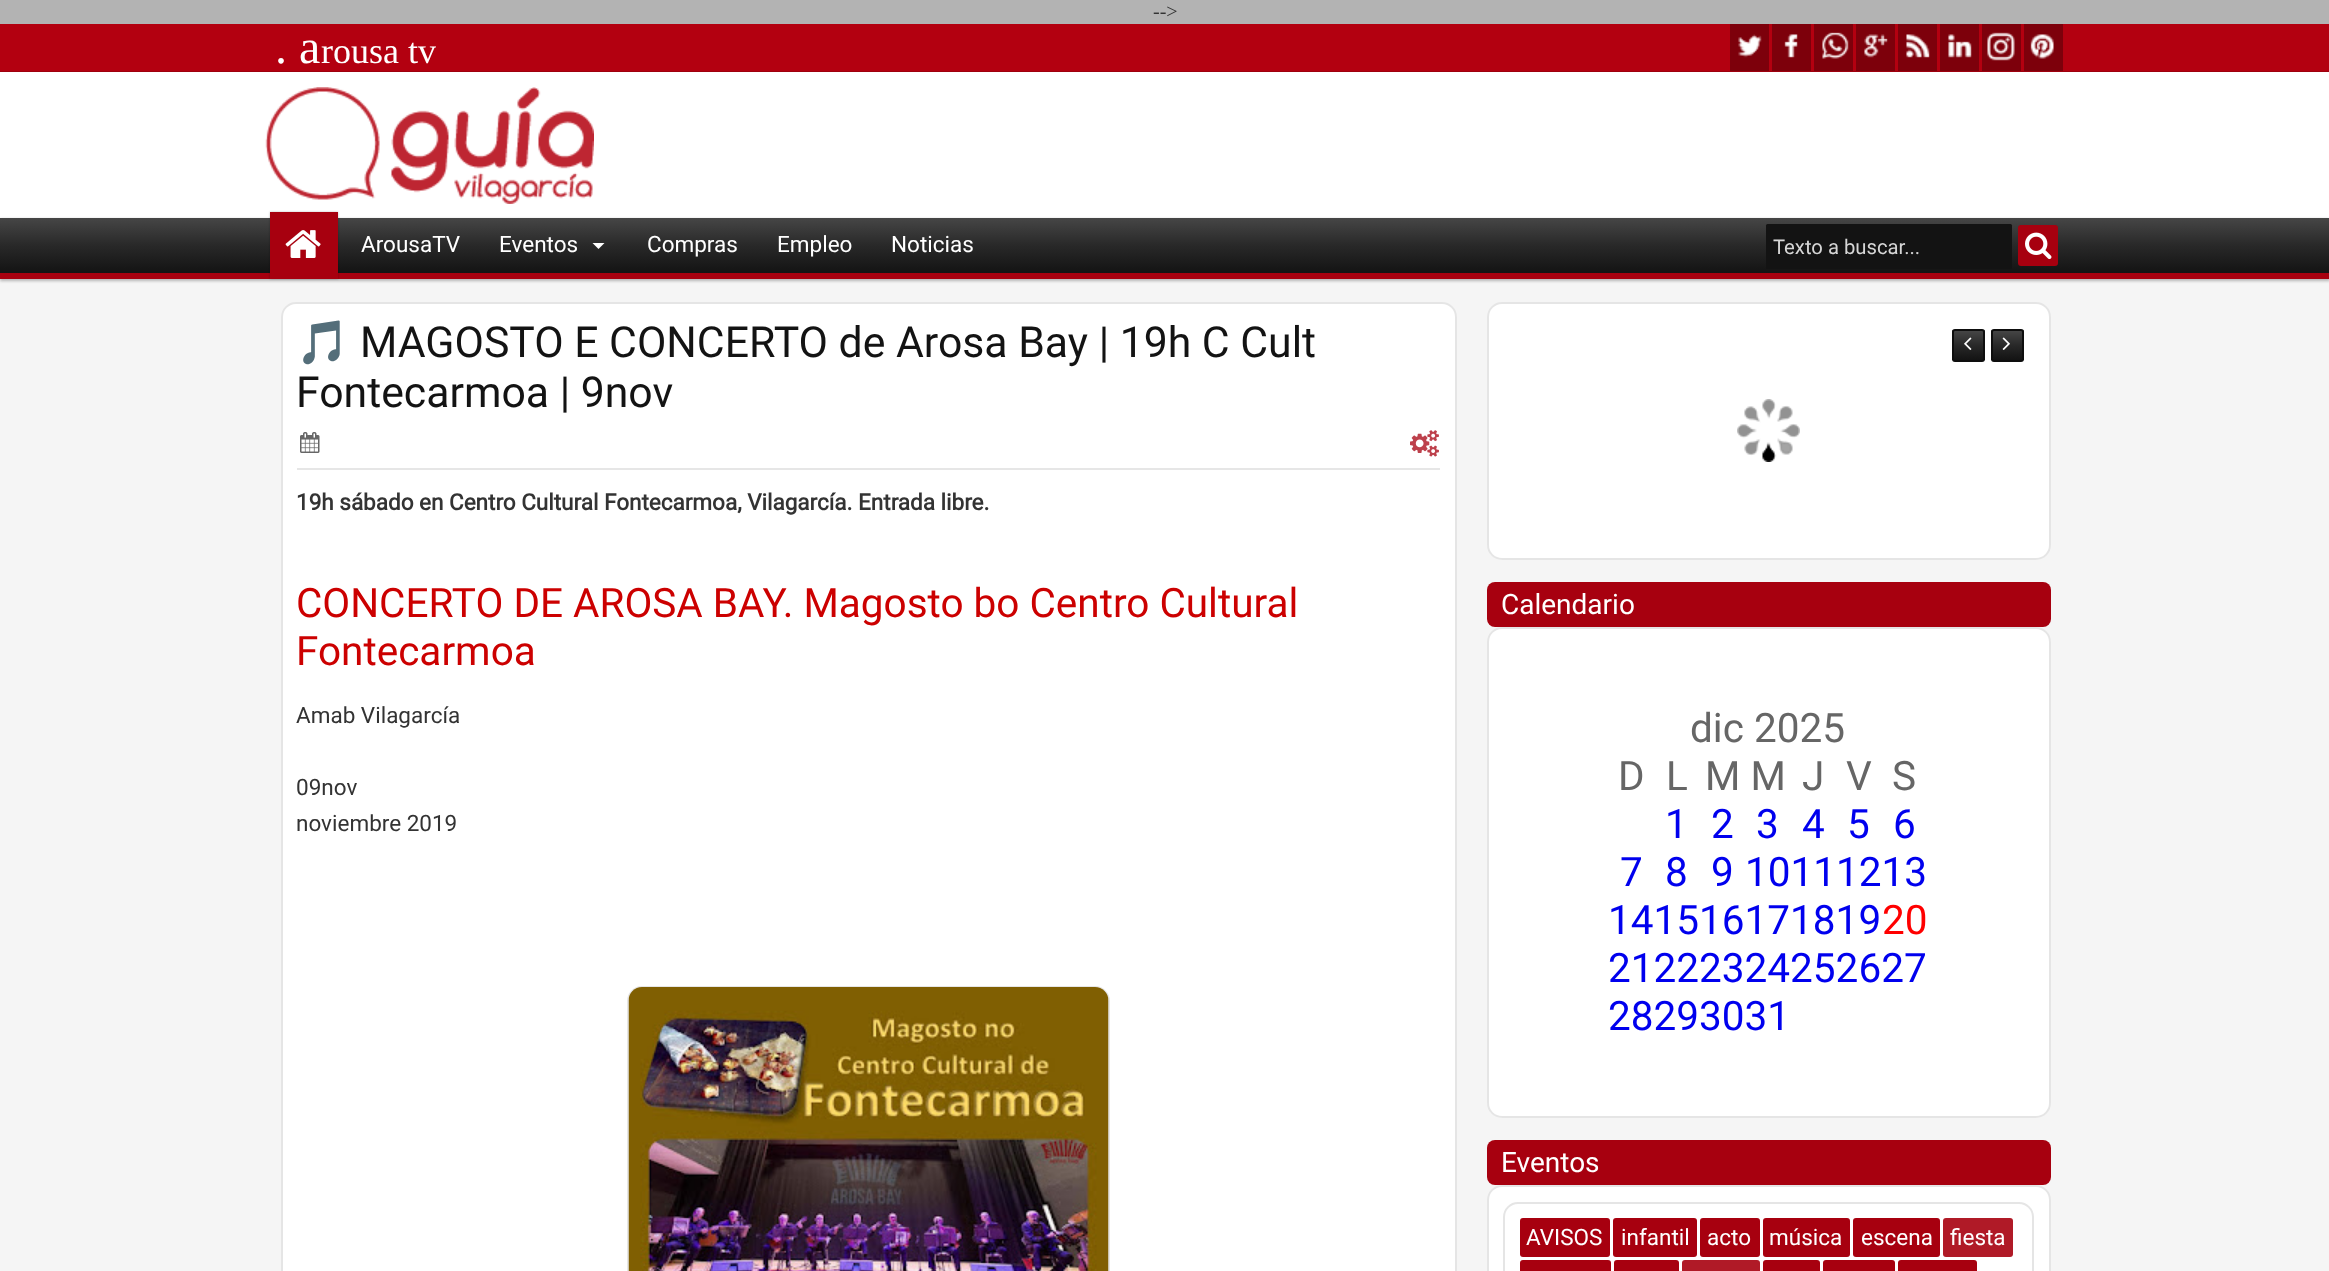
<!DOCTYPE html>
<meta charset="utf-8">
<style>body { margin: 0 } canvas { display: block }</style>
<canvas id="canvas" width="2329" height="1271"></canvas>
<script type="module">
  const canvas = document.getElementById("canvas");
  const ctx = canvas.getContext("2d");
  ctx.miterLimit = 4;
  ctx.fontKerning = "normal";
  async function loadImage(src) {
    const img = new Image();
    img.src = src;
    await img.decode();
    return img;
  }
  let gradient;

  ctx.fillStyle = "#b3b3b3";
  ctx.fillRect(0, 0, 2329, 1271);
  ctx.font = "20px Liberation Serif";
  ctx.fillStyle = "#333333";
  ctx.fillText("-->", 1153, 18);
  ctx.fillStyle = "#f5f5f5";
  ctx.fillRect(0, 279, 2329, 992);
  ctx.fillStyle = "#b30010";
  ctx.fillRect(0, 24, 2329, 47);
  ctx.fillStyle = "#9e000e";
  ctx.fillRect(0, 71, 2329, 1);
  ctx.font = "48px Liberation Serif";
  ctx.fillStyle = "#ffffff";
  ctx.fillText(". a", 275, 63);
  ctx.font = "36px Liberation Serif";
  ctx.fillText("rousa tv", 321, 63);
  ctx.fillStyle = "#7d000b";
  ctx.fillRect(1730, 24, 39, 47);
  ctx.drawImage(await loadImage("img1.png"), 1738, 34, 24, 24);
  ctx.fillRect(1772, 24, 39, 47);
  ctx.drawImage(await loadImage("img2.png"), 1784, 34, 14, 24);
  ctx.fillRect(1814, 24, 39, 47);
  ctx.drawImage(await loadImage("img3.png"), 1822, 32, 27, 27);
  ctx.fillRect(1856, 24, 39, 47);
  ctx.drawImage(await loadImage("img4.png"), 1864, 34, 24, 24);
  ctx.fillRect(1898, 24, 39, 47);
  ctx.drawImage(await loadImage("img5.png"), 1906, 34, 24, 24);
  ctx.fillRect(1940, 24, 39, 47);
  ctx.drawImage(await loadImage("img6.png"), 1948, 34, 24, 24);
  ctx.fillRect(1982, 24, 39, 47);
  ctx.drawImage(await loadImage("img7.png"), 1987, 32, 28, 29);
  ctx.fillRect(2024, 24, 39, 47);
  ctx.drawImage(await loadImage("img8.png"), 2030, 34, 24, 25);
  ctx.fillStyle = "#ffffff";
  ctx.fillRect(0, 72, 2329, 146);
  ctx.drawImage(await loadImage("img9.png"), 265, 87, 329, 117);
  ctx.fillStyle = "rgba(0, 0, 0, 0.26)";
  ctx.filter = "blur(1.5px)";
  ctx.beginPath();
  ctx.rect(0, 219, 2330, 62);
  ctx.fill();
  ctx.filter = "none";
  gradient = ctx.createLinearGradient(1165, 217, 1165, 273);
  gradient.addColorStop(0, "#474747");
  gradient.addColorStop(0.5, "#292929");
  gradient.addColorStop(1, "#131313");
  ctx.fillStyle = gradient;
  ctx.fillRect(0, 218, 2329, 55);
  ctx.fillStyle = "#a7000f";
  ctx.fillRect(0, 273, 2329, 6);
  ctx.fillStyle = "rgba(0, 0, 0, 0.26)";
  ctx.filter = "blur(1px)";
  ctx.beginPath();
  ctx.rect(270, 212, 68, 67);
  ctx.fill();
  ctx.filter = "none";
  ctx.fillStyle = "#a7000f";
  ctx.fillRect(270, 212, 68, 67);
  ctx.drawImage(await loadImage("img10.png"), 285, 230, 36, 28);
  ctx.font = "22.5px Roboto";
  ctx.fillStyle = "#ffffff";
  ctx.fillText("ArousaTV", 361, 252);
  ctx.fillText("Eventos", 499, 252);
  ctx.beginPath();
  ctx.moveTo(592.5, 243);
  ctx.lineTo(604.5, 243);
  ctx.lineTo(598.5, 249);
  ctx.closePath();
  ctx.fill();
  ctx.fillText("Compras", 647, 252);
  ctx.fillText("Empleo", 777, 252);
  ctx.fillText("Noticias", 891, 252);
  ctx.fillStyle = "#131313";
  ctx.beginPath();
  ctx.roundRect(1766, 224, 246, 45, 1.5);
  ctx.fill();
  ctx.font = "20.25px Roboto";
  ctx.fillStyle = "#d6d6d6";
  ctx.fillText("Texto a buscar...", 1773, 254);
  ctx.fillStyle = "#a7000f";
  ctx.beginPath();
  ctx.roundRect(2018, 225, 40, 41, 3);
  ctx.fill();
  ctx.drawImage(await loadImage("img11.png"), 2025, 232, 27, 28);
  ctx.fillStyle = "#ffffff";
  ctx.beginPath();
  ctx.roundRect(281, 302, 1176, 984, 15);
  ctx.fill();
  ctx.beginPath();
  ctx.roundRect(282, 303, 1174, 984, 14);
  ctx.strokeStyle = "rgba(0, 0, 0, 0.1)";
  ctx.lineWidth = 2;
  ctx.stroke();
  ctx.font = "42.75px Noto Color Emoji";
  ctx.fillStyle = "#131313";
  ctx.fillText("🎵", 296, 357);
  ctx.font = "42.75px Roboto";
  ctx.fillText("MAGOSTO E CONCERTO de Arosa Bay | 19h C Cult", 360, 357);
  ctx.fillText("Fontecarmoa | 9nov", 296, 407);
  ctx.fillStyle = "#e6e6e6";
  ctx.fillRect(297, 468, 1143, 2);
  ctx.drawImage(await loadImage("img12.png"), 300, 432, 20, 21);
  ctx.drawImage(await loadImage("img13.png"), 1410, 430, 29, 27);
  ctx.font = "bold 22.5px Roboto";
  ctx.fillStyle = "#333333";
  ctx.fillText("19h sábado en Centro Cultural Fontecarmoa, Vilagarcía. Entrada libre.", 296, 510);
  ctx.font = "40.5px Roboto";
  ctx.fillStyle = "#cc0000";
  ctx.fillText("CONCERTO DE AROSA BAY. Magosto bo Centro Cultural", 296, 617);
  ctx.fillText("Fontecarmoa", 296, 665);
  ctx.font = "22.5px Roboto";
  ctx.fillStyle = "#333333";
  ctx.fillText("Amab Vilagarcía", 296, 723);
  ctx.fillText("09nov", 296, 795);
  ctx.fillText("noviembre 2019", 296, 831);
  ctx.beginPath();
  ctx.roundRect(628, 987, 481, 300, 14);
  ctx.strokeStyle = "#e6e6e6";
  ctx.stroke();
  ctx.drawImage(await loadImage("img14.png"), 628, 987, 481, 284);
  ctx.fillStyle = "#ffffff";
  ctx.beginPath();
  ctx.roundRect(1487, 302, 564, 258, 15);
  ctx.fill();
  ctx.beginPath();
  ctx.roundRect(1488, 303, 562, 256, 14);
  ctx.strokeStyle = "rgba(0, 0, 0, 0.1)";
  ctx.stroke();
  ctx.drawImage(await loadImage("img15.png"), 1737, 399, 63, 63);
  ctx.save();
  ctx.beginPath();
  ctx.roundRect(1952, 329, 33, 33, 3);
  ctx.clip();
  gradient = ctx.createLinearGradient(1968, 330, 1968, 360);
  gradient.addColorStop(0, "#474747");
  gradient.addColorStop(0.5, "#292929");
  gradient.addColorStop(1, "#131313");
  ctx.fillStyle = gradient;
  ctx.fillRect(1952, 330, 33, 30);
  ctx.restore();
  ctx.beginPath();
  ctx.roundRect(1953, 330, 31, 31, 2);
  ctx.strokeStyle = "#0e0e0e";
  ctx.stroke();
  ctx.drawImage(await loadImage("img16.png"), 1964, 337, 8, 13);
  ctx.save();
  ctx.beginPath();
  ctx.roundRect(1991, 329, 33, 33, 3);
  ctx.clip();
  gradient = ctx.createLinearGradient(2007, 330, 2007, 360);
  gradient.addColorStop(0, "#474747");
  gradient.addColorStop(0.5, "#292929");
  gradient.addColorStop(1, "#131313");
  ctx.fillStyle = gradient;
  ctx.fillRect(1991, 330, 33, 30);
  ctx.restore();
  ctx.beginPath();
  ctx.roundRect(1992, 330, 31, 31, 2);
  ctx.stroke();
  ctx.drawImage(await loadImage("img17.png"), 2002, 337, 8, 13);
  ctx.fillStyle = "#a7000f";
  ctx.beginPath();
  ctx.roundRect(1487, 582, 564, 45, 8);
  ctx.fill();
  ctx.font = "28px Roboto";
  ctx.fillStyle = "#ffffff";
  ctx.fillText("Calendario", 1501, 614);
  ctx.beginPath();
  ctx.roundRect(1487, 627, 564, 491, 15);
  ctx.fill();
  ctx.beginPath();
  ctx.roundRect(1488, 628, 562, 489, 14);
  ctx.strokeStyle = "rgba(0, 0, 0, 0.1)";
  ctx.stroke();
  ctx.font = "40.5px Roboto";
  ctx.fillStyle = "#666666";
  ctx.fillText("dic 2025", 1690, 742);
  ctx.fillText("D", 1618, 790);
  ctx.fillText("L", 1666, 790);
  ctx.fillText("M M", 1705, 790);
  ctx.fillText("J", 1802, 790);
  ctx.fillText("V", 1846, 790);
  ctx.fillText("S", 1892, 790);
  ctx.fillStyle = "#0000ee";
  ctx.fillText("1", 1665, 838);
  ctx.fillText("2", 1711, 838);
  ctx.fillText("3", 1756, 838);
  ctx.fillText("4", 1802, 838);
  ctx.fillText("5", 1847, 838);
  ctx.fillText("6", 1893, 838);
  ctx.fillText("7", 1620, 886);
  ctx.fillText("8", 1665, 886);
  ctx.fillText("9", 1711, 886);
  ctx.fillText("10111213", 1745, 886);
  ctx.fillText("141516171819", 1608, 934);
  ctx.fillStyle = "#ff0000";
  ctx.fillText("20", 1882, 934);
  ctx.fillStyle = "#0000ee";
  ctx.fillText("21222324252627", 1608, 982);
  ctx.fillText("28293031", 1608, 1030);
  ctx.fillStyle = "#a7000f";
  ctx.beginPath();
  ctx.roundRect(1487, 1140, 564, 45, 8);
  ctx.fill();
  ctx.font = "28px Roboto";
  ctx.fillStyle = "#ffffff";
  ctx.fillText("Eventos", 1501, 1172);
  ctx.beginPath();
  ctx.roundRect(1487, 1185, 564, 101, 15);
  ctx.fill();
  ctx.beginPath();
  ctx.roundRect(1488, 1186, 562, 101, 14);
  ctx.stroke();
  ctx.beginPath();
  ctx.roundRect(1504, 1203, 529, 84, 14);
  ctx.strokeStyle = "#e5e5e5";
  ctx.stroke();
  ctx.fillStyle = "#a7000f";
  ctx.beginPath();
  ctx.roundRect(1520, 1218, 90, 39, 3);
  ctx.fill();
  ctx.font = "22.5px Roboto";
  ctx.fillStyle = "#ffffff";
  ctx.fillText("AVISOS", 1526, 1245);
  ctx.fillStyle = "#a7000f";
  ctx.beginPath();
  ctx.roundRect(1613, 1218, 84, 39, 3);
  ctx.fill();
  ctx.fillStyle = "#ffffff";
  ctx.fillText("infantil", 1621, 1245);
  ctx.fillStyle = "#a7000f";
  ctx.beginPath();
  ctx.roundRect(1700, 1218, 60, 39, 3);
  ctx.fill();
  ctx.fillStyle = "#ffffff";
  ctx.fillText("acto", 1707, 1245);
  ctx.fillStyle = "#a7000f";
  ctx.beginPath();
  ctx.roundRect(1763, 1218, 87, 39, 3);
  ctx.fill();
  ctx.fillStyle = "#ffffff";
  ctx.fillText("música", 1769, 1245);
  ctx.fillStyle = "#a7000f";
  ctx.beginPath();
  ctx.roundRect(1853, 1218, 87, 39, 3);
  ctx.fill();
  ctx.fillStyle = "#ffffff";
  ctx.fillText("escena", 1861, 1245);
  ctx.fillStyle = "#b01a27";
  ctx.beginPath();
  ctx.roundRect(1943, 1218, 70, 39, 3);
  ctx.fill();
  ctx.fillStyle = "#ffffff";
  ctx.fillText("fiesta", 1950, 1245);
  ctx.fillStyle = "#a7000f";
  ctx.beginPath();
  ctx.roundRect(1520, 1260, 91, 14, 3);
  ctx.fill();
  ctx.beginPath();
  ctx.roundRect(1614, 1260, 65, 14, 3);
  ctx.fill();
  ctx.fillStyle = "#b01a27";
  ctx.beginPath();
  ctx.roundRect(1682, 1260, 78, 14, 3);
  ctx.fill();
  ctx.fillStyle = "#a7000f";
  ctx.beginPath();
  ctx.roundRect(1763, 1260, 57, 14, 3);
  ctx.fill();
  ctx.beginPath();
  ctx.roundRect(1823, 1260, 72, 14, 3);
  ctx.fill();
  ctx.beginPath();
  ctx.roundRect(1898, 1260, 79, 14, 3);
  ctx.fill();
</script>
